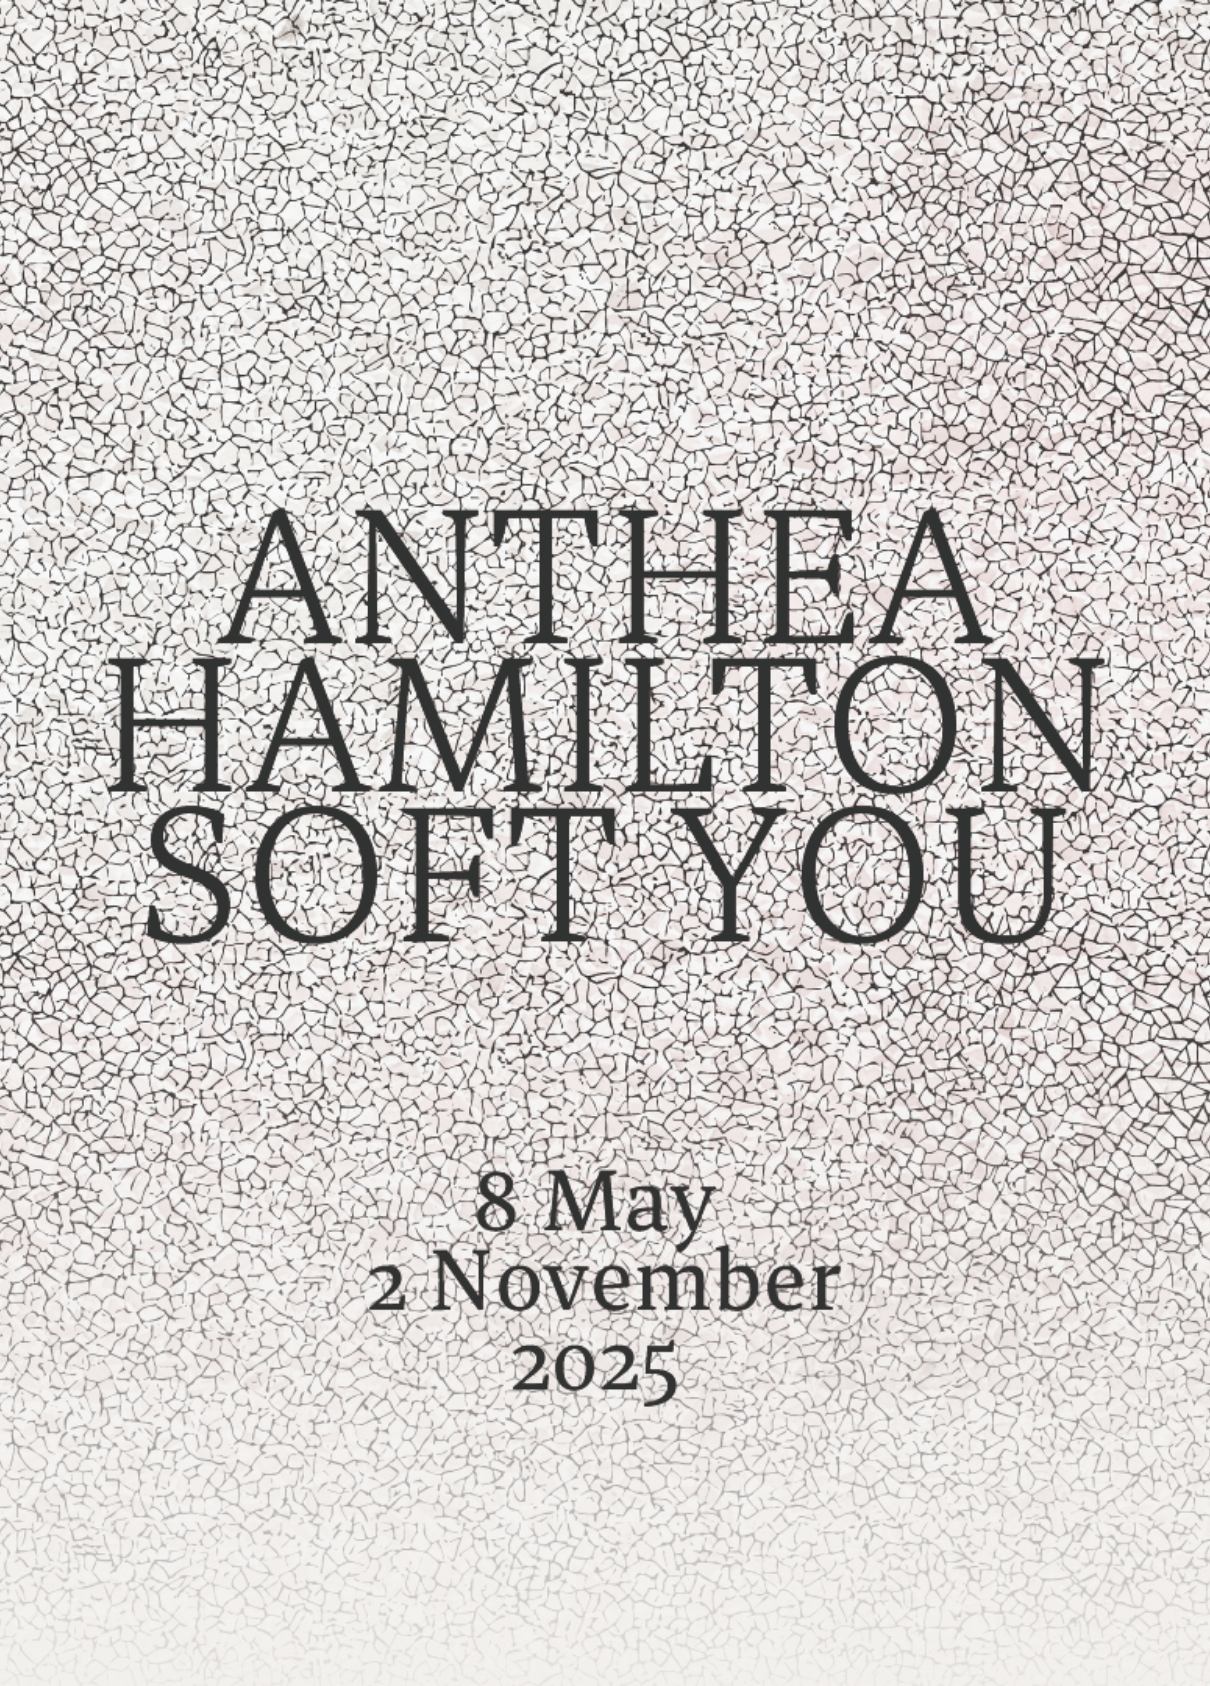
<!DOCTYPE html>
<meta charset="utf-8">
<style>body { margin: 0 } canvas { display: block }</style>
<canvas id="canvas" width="1210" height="1686"></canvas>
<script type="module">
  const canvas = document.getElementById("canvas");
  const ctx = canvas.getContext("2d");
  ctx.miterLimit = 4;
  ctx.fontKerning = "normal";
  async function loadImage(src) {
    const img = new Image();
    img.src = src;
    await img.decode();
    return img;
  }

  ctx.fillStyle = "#ffffff";
  ctx.fillRect(0, 0, 1210, 1686);
  ctx.drawImage(await loadImage("img1.png"), 0, 0, 1210, 1686);
</script>
